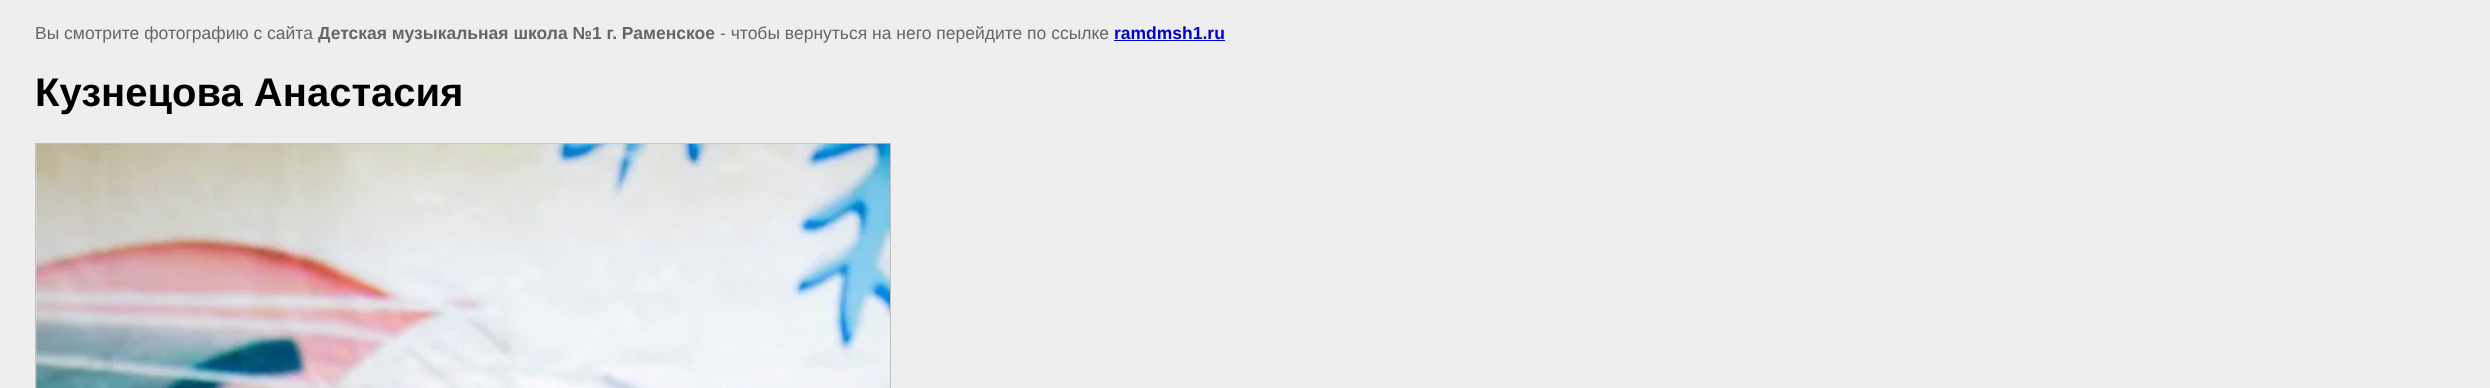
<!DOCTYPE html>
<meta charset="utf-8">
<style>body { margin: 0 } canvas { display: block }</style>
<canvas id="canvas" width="2490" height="388"></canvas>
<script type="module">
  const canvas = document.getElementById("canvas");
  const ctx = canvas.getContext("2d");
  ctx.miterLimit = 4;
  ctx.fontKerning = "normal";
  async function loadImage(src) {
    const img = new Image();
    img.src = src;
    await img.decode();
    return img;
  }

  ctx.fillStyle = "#eeeeee";
  ctx.fillRect(0, 0, 2490, 388);
  ctx.font = "17.5px Liberation Sans";
  ctx.fillStyle = "#666666";
  ctx.fillText("Вы смотрите фотографию с сайта", 35, 39);
  ctx.font = "bold 17.5px Liberation Sans";
  ctx.fillText("Детская музыкальная школа №1 г. Раменское", 318, 39);
  ctx.font = "17.5px Liberation Sans";
  ctx.fillText("- чтобы вернуться на него перейдите по ссылке", 720, 39);
  ctx.font = "bold 17.5px Liberation Sans";
  ctx.fillStyle = "#0000cc";
  ctx.fillText("ramdmsh1.ru", 1114, 39);
  ctx.fillRect(1114, 40, 111, 1);
  ctx.font = "bold 40px Liberation Sans";
  ctx.fillStyle = "#000000";
  ctx.fillText("Кузнецова Анастасия", 35, 106);
  ctx.strokeStyle = "#c0c0c0";
  ctx.strokeRect(35.5, 143.5, 855, 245);
  ctx.drawImage(await loadImage("img1.png"), 36, 143, 854, 245);
</script>
